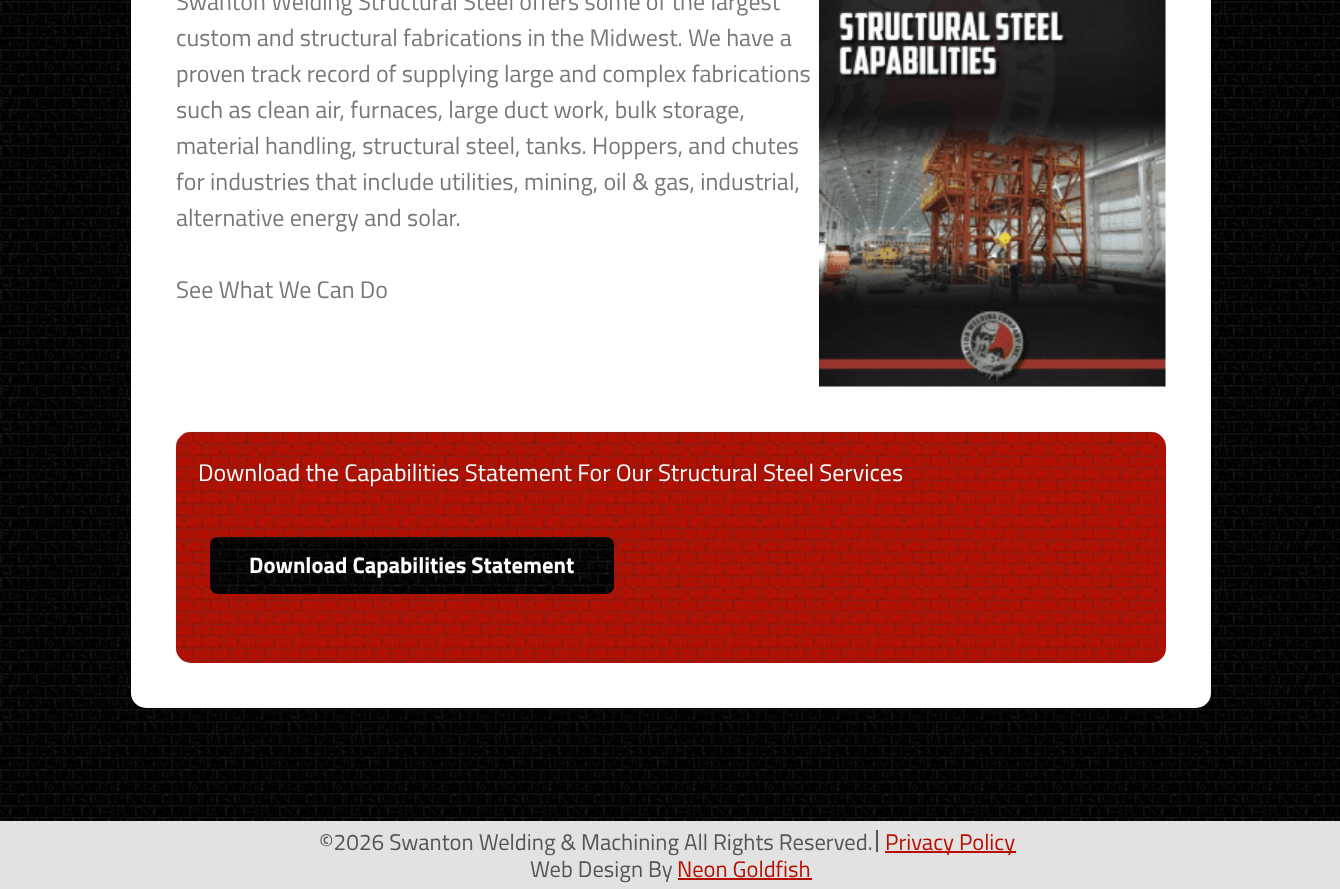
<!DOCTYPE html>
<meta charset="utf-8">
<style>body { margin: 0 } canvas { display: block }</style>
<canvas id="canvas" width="1340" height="889"></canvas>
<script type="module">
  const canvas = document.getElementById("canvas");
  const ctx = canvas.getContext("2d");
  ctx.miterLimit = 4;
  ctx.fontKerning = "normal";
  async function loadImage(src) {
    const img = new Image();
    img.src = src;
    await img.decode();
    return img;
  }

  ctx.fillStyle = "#000000";
  ctx.fillRect(0, 0, 1340, 889);
  ctx.drawImage(await loadImage("img1.png"), 0, 0, 1340, 821);
  ctx.fillStyle = "#ffffff";
  ctx.beginPath();
  ctx.roundRect(131, -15, 1080, 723, 15);
  ctx.fill();
  ctx.font = "24px Titillium Web";
  ctx.fillStyle = "#777777";
  ctx.fillText("Swanton Welding Structural Steel offers some of the largest", 176, 10);
  ctx.fillText("custom and structural fabrications in the Midwest. We have a", 176, 46);
  ctx.fillText("proven track record of supplying large and complex fabrications", 176, 82);
  ctx.fillText("such as clean air, furnaces, large duct work, bulk storage,", 176, 118);
  ctx.fillText("material handling, structural steel, tanks. Hoppers, and chutes", 176, 154);
  ctx.fillText("for industries that include utilities, mining, oil & gas, industrial,", 176, 190);
  ctx.fillText("alternative energy and solar.", 176, 226);
  ctx.drawImage(await loadImage("img2.png"), 819, 0, 347, 387);
  ctx.fillText("See What We Can Do", 176, 298);
  ctx.fillStyle = "#b80f00";
  ctx.beginPath();
  ctx.roundRect(176, 432, 990, 231, 15);
  ctx.fill();
  ctx.drawImage(await loadImage("img3.png"), 175, 431, 991, 232);
  ctx.fillStyle = "#ffffff";
  ctx.fillText("Download the Capabilities Statement For Our Structural Steel Services", 198, 481);
  ctx.fillStyle = "#000000";
  ctx.beginPath();
  ctx.roundRect(210, 537, 404, 57, 8);
  ctx.fill();
  ctx.drawImage(await loadImage("img4.png"), 210, 536, 404, 58);
  ctx.font = "bold 22.6px Titillium Web";
  ctx.fillStyle = "#ffffff";
  ctx.fillText("Download Capabilities Statement", 249, 573);
  ctx.fillStyle = "#e2e2e2";
  ctx.fillRect(0, 821, 1340, 68);
  ctx.font = "22.6px Titillium Web";
  ctx.fillStyle = "#555555";
  ctx.fillText("©2026 Swanton Welding & Machining All Rights Reserved.", 319, 850);
  ctx.fillRect(876, 830, 2, 22);
  ctx.fillStyle = "#b80f00";
  ctx.fillRect(885, 851, 131, 2);
  ctx.fillText("Privacy Policy", 885, 850);
  ctx.fillStyle = "#555555";
  ctx.fillText("Web Design By", 530, 877);
  ctx.fillStyle = "#b80f00";
  ctx.fillText("Neon Goldfish", 677, 877);
  ctx.fillRect(678, 878, 134, 2);
</script>
